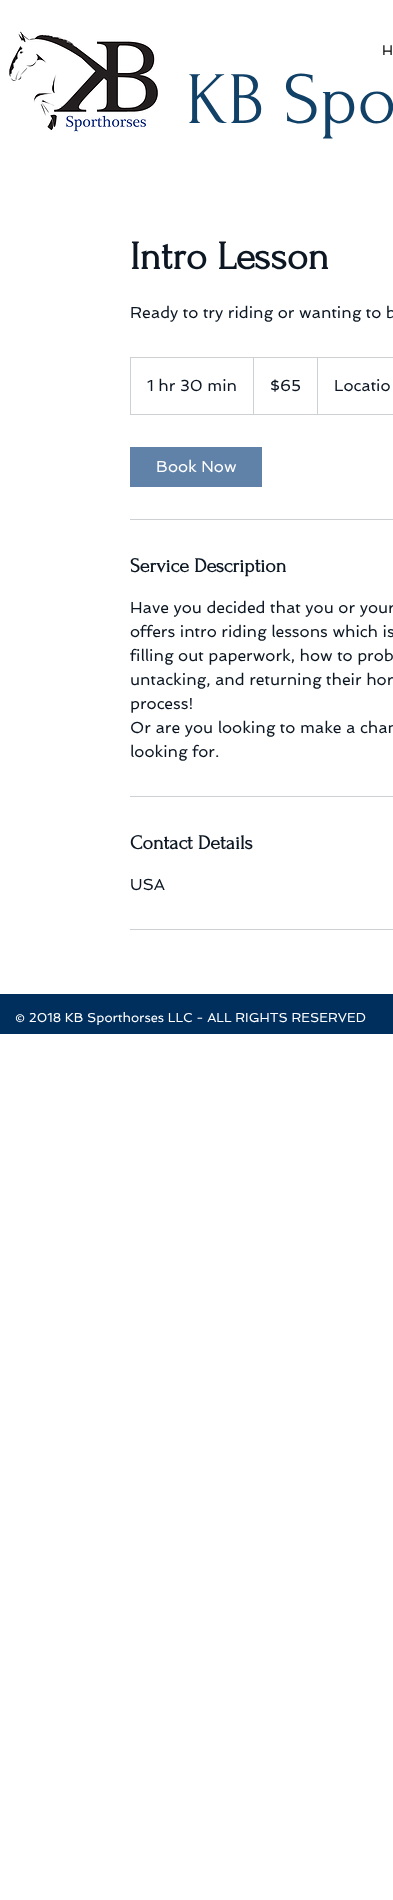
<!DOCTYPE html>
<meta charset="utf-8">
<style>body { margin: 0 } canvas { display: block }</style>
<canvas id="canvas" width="393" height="1900"></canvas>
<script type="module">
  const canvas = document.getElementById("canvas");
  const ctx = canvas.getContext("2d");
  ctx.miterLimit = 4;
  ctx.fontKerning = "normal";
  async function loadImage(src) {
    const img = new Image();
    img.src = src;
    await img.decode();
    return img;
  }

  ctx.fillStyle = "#ffffff";
  ctx.fillRect(0, 0, 393, 1900);
  ctx.drawImage(await loadImage("img1.png"), 9, 31, 149, 101);
  ctx.font = "14px Spinnaker";
  ctx.fillStyle = "#000000";
  ctx.fillText("H", 382, 55);
  ctx.font = "74px Forum";
  ctx.fillStyle = "#124168";
  ctx.fillText("KB Spo", 186, 123);
  ctx.font = "bold 40px Forum";
  ctx.fillStyle = "#0c1723";
  ctx.fillText("Intro Lesson", 130, 269);
  ctx.font = "16px Spinnaker";
  ctx.fillText("Ready to try riding or wanting to b", 130, 318);
  ctx.strokeStyle = "#ced1d3";
  ctx.strokeRect(130.5, 357.5, 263, 57);
  ctx.fillText("1 hr 30 min", 147, 391);
  ctx.fillStyle = "#ced1d3";
  ctx.beginPath();
  ctx.moveTo(253, 414);
  ctx.lineTo(253, 357);
  ctx.lineTo(254, 358);
  ctx.lineTo(254, 414);
  ctx.closePath();
  ctx.fill();
  ctx.fillStyle = "#0c1723";
  ctx.fillText("$65", 270, 391);
  ctx.fillStyle = "#ced1d3";
  ctx.beginPath();
  ctx.moveTo(317, 414);
  ctx.lineTo(317, 357);
  ctx.lineTo(318, 358);
  ctx.lineTo(318, 414);
  ctx.closePath();
  ctx.fill();
  ctx.fillStyle = "#0c1723";
  ctx.fillText("Locatio", 334, 391);
  ctx.fillStyle = "#6182a8";
  ctx.fillRect(130, 447, 132, 40);
  ctx.fillStyle = "#ffffff";
  ctx.fillText("Book Now", 156, 472);
  ctx.fillStyle = "#ced1d3";
  ctx.fillRect(130, 519, 263, 1);
  ctx.font = "bold 20px Forum";
  ctx.fillStyle = "#0c1723";
  ctx.fillText("Service Description", 130, 572);
  ctx.font = "16px Spinnaker";
  ctx.fillText("Have you decided that you or your", 130, 613);
  ctx.fillText("offers intro riding lessons which is", 130, 637);
  ctx.fillText("filling out paperwork, how to prob", 130, 661);
  ctx.fillText("untacking, and returning their hor", 130, 685);
  ctx.fillText("process!", 130, 709);
  ctx.fillText("Or are you looking to make a chan", 130, 733);
  ctx.fillText("looking for.", 130, 757);
  ctx.fillStyle = "#ced1d3";
  ctx.fillRect(130, 796, 263, 1);
  ctx.font = "bold 20px Forum";
  ctx.fillStyle = "#0c1723";
  ctx.fillText("Contact Details", 130, 849);
  ctx.font = "16px Spinnaker";
  ctx.fillText("USA", 130, 890);
  ctx.fillStyle = "#ced1d3";
  ctx.fillRect(130, 929, 263, 1);
  ctx.fillStyle = "#002e5d";
  ctx.fillRect(0, 994, 393, 40);
  ctx.font = "13px Spinnaker";
  ctx.fillStyle = "#ffffff";
  ctx.fillText("© 2018 KB Sporthorses LLC - ALL RIGHTS RESERVED", 15, 1022);
</script>
